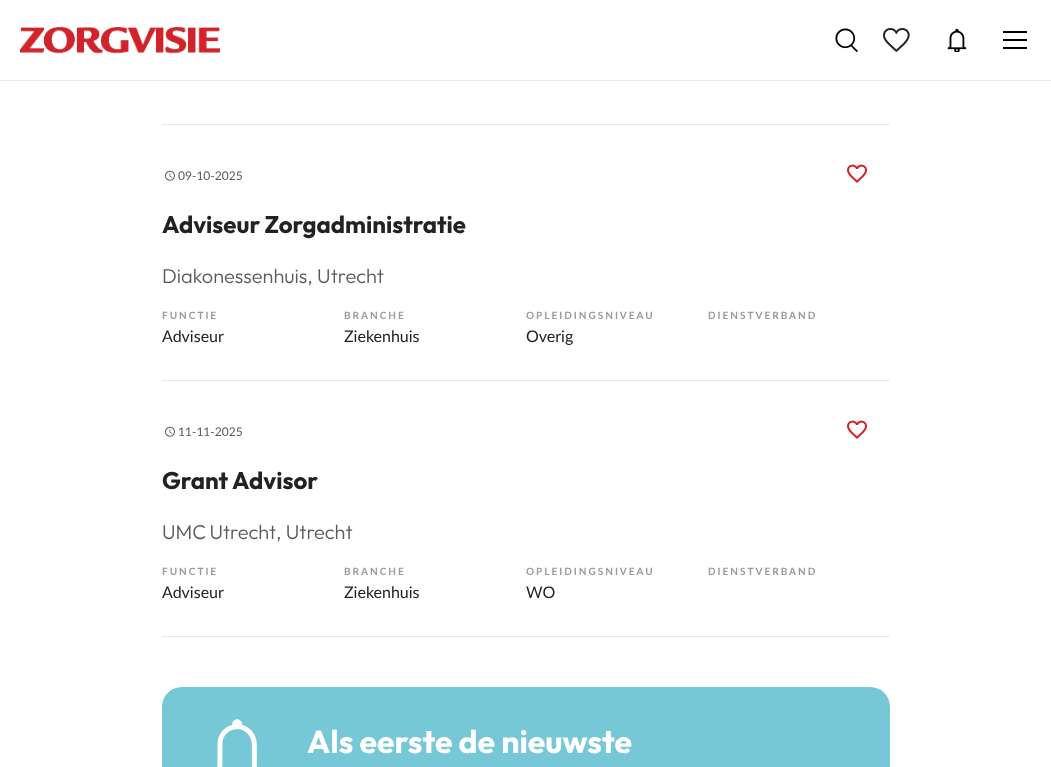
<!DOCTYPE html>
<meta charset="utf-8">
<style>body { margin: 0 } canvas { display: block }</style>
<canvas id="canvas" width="1051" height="767"></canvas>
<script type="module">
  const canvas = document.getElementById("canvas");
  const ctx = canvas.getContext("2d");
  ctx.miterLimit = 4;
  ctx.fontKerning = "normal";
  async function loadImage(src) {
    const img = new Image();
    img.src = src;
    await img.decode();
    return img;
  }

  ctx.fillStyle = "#ffffff";
  ctx.fillRect(0, 0, 1051, 767);
  ctx.fillStyle = "#e9e9e9";
  ctx.fillRect(0, 80, 1051, 1);
  ctx.drawImage(await loadImage("img1.png"), 20, 26, 200, 28);
  ctx.drawImage(await loadImage("img2.png"), 835, 28, 23, 24);
  ctx.drawImage(await loadImage("img3.png"), 883, 28, 27, 24);
  ctx.drawImage(await loadImage("img4.png"), 947, 28, 20, 24);
  ctx.fillStyle = "#000000";
  ctx.fillRect(1003, 39, 24, 2);
  ctx.fillRect(1003, 31, 24, 2);
  ctx.fillRect(1003, 47, 24, 2);
  ctx.fillStyle = "#e9e9e9";
  ctx.fillRect(162, 124, 728, 1);
  ctx.fillRect(162, 380, 728, 1);
  ctx.drawImage(await loadImage("img5.png"), 165, 170, 10, 11);
  ctx.font = "12px Lato";
  ctx.fillStyle = "#595959";
  ctx.fillText("09-10-2025", 178, 180);
  ctx.font = "bold 24px Outfit";
  ctx.fillStyle = "#222222";
  ctx.fillText("Adviseur Zorgadministratie", 162, 233);
  ctx.font = "300 20px Outfit";
  ctx.fillStyle = "#595959";
  ctx.fillText("Diakonessenhuis, Utrecht", 162, 283);
  ctx.letterSpacing = "2px";
  ctx.font = "bold 10px Lato";
  ctx.fillStyle = "#999999";
  ctx.fillText("FUNCTIE", 162, 319);
  ctx.fillText("BRANCHE", 344, 319);
  ctx.fillText("OPLEIDINGSNIVEAU", 526, 319);
  ctx.fillText("DIENSTVERBAND", 708, 319);
  ctx.letterSpacing = "0px";
  ctx.font = "16px Lato";
  ctx.fillStyle = "#222222";
  ctx.fillText("Adviseur", 162, 342);
  ctx.fillText("Ziekenhuis", 344, 342);
  ctx.fillText("Overig", 526, 342);
  ctx.drawImage(await loadImage("img6.png"), 847, 164, 20, 19);
  ctx.fillStyle = "#e9e9e9";
  ctx.fillRect(162, 636, 728, 1);
  ctx.drawImage(await loadImage("img5.png"), 165, 426, 10, 11);
  ctx.font = "12px Lato";
  ctx.fillStyle = "#595959";
  ctx.fillText("11-11-2025", 178, 436);
  ctx.font = "bold 24px Outfit";
  ctx.fillStyle = "#222222";
  ctx.fillText("Grant Advisor", 162, 489);
  ctx.wordSpacing = "-1px";
  ctx.font = "300 20px Outfit";
  ctx.fillStyle = "#595959";
  ctx.fillText("UMC Utrecht", 162, 539);
  ctx.wordSpacing = "0px";
  ctx.fillText(", Utrecht", 276, 539);
  ctx.letterSpacing = "2px";
  ctx.font = "bold 10px Lato";
  ctx.fillStyle = "#999999";
  ctx.fillText("FUNCTIE", 162, 575);
  ctx.fillText("BRANCHE", 344, 575);
  ctx.fillText("OPLEIDINGSNIVEAU", 526, 575);
  ctx.fillText("DIENSTVERBAND", 708, 575);
  ctx.letterSpacing = "0px";
  ctx.font = "16px Lato";
  ctx.fillStyle = "#222222";
  ctx.fillText("Adviseur", 162, 598);
  ctx.fillText("Ziekenhuis", 344, 598);
  ctx.fillText("WO", 526, 598);
  ctx.drawImage(await loadImage("img6.png"), 847, 420, 20, 19);
  ctx.fillStyle = "#76c8d7";
  ctx.beginPath();
  ctx.roundRect(162, 687, 728, 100, 20);
  ctx.fill();
  ctx.drawImage(await loadImage("img7.png"), 217, 719, 40, 48);
  ctx.font = "bold 32px Outfit";
  ctx.fillStyle = "#ffffff";
  ctx.fillText("Als eerste de nieuwste", 307, 753);
</script>
